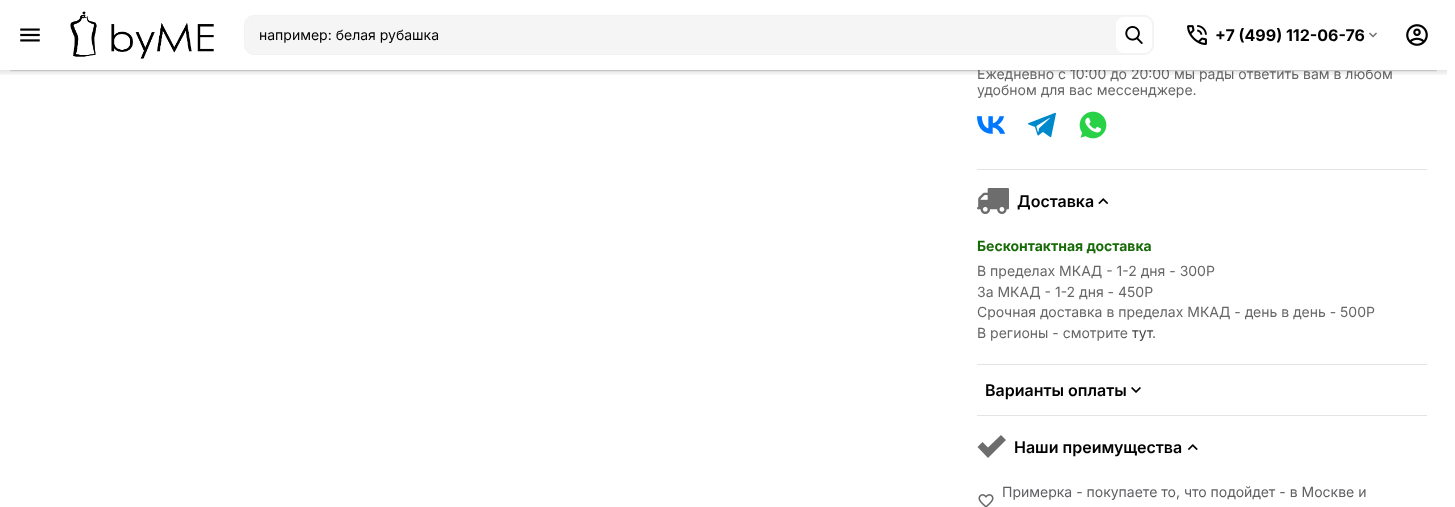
<!DOCTYPE html>
<meta charset="utf-8">
<style>body { margin: 0 } canvas { display: block }</style>
<canvas id="canvas" width="1455" height="507"></canvas>
<script type="module">
  const canvas = document.getElementById("canvas");
  const ctx = canvas.getContext("2d");
  ctx.miterLimit = 4;
  ctx.fontKerning = "normal";
  async function loadImage(src) {
    const img = new Image();
    img.src = src;
    await img.decode();
    return img;
  }
  let gradient;

  ctx.fillStyle = "#ffffff";
  ctx.fillRect(0, 0, 1455, 507);
  ctx.font = "14px Inter";
  ctx.fillStyle = "#666666";
  ctx.fillText("Ежедневно с 10:00 до 20:00 мы рады ответить вам в любом", 977, 79);
  ctx.fillStyle = "#ffffff";
  ctx.fillRect(978, 68, 395, 2);
  ctx.save();
  ctx.beginPath();
  ctx.rect(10, 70, 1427, 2);
  ctx.clip();
  ctx.fillStyle = "rgba(0, 0, 0, 0.05)";
  ctx.filter = "blur(1px)";
  ctx.beginPath();
  ctx.rect(10, 2, 1427, 70);
  ctx.fill();
  ctx.filter = "none";
  ctx.restore();
  ctx.save();
  ctx.beginPath();
  ctx.rect(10, 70, 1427, 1);
  ctx.clip();
  ctx.fillStyle = "rgba(0, 0, 0, 0.1)";
  ctx.filter = "blur(0.5px)";
  ctx.beginPath();
  ctx.rect(10, 1, 1427, 70);
  ctx.fill();
  ctx.filter = "none";
  ctx.restore();
  ctx.drawImage(await loadImage("img1.png"), 20, 28, 20, 14);
  ctx.drawImage(await loadImage("img2.png"), 70, 11, 144, 48);
  ctx.fillStyle = "#f5f5f5";
  ctx.beginPath();
  ctx.roundRect(244.5, 15.5, 909, 39, 9.5);
  ctx.fill();
  ctx.strokeStyle = "#f2f2f2";
  ctx.stroke();
  ctx.fillStyle = "#000000";
  ctx.fillText("например: белая рубашка", 259, 40);
  ctx.fillStyle = "#ffffff";
  ctx.beginPath();
  ctx.roundRect(1116, 17, 36, 36, 8);
  ctx.fill();
  ctx.drawImage(await loadImage("img3.png"), 1125, 26, 18, 18);
  ctx.drawImage(await loadImage("img4.png"), 1187, 25, 20, 20);
  ctx.font = "bold 16px Inter";
  ctx.fillStyle = "#000000";
  ctx.fillText("+7 (499) 112-06-76", 1215, 41);
  ctx.drawImage(await loadImage("img5.png"), 1369, 32, 8, 6);
  ctx.drawImage(await loadImage("img6.png"), 1406, 24, 22, 22);
  gradient = ctx.createLinearGradient(724, 70, 724, 77);
  gradient.addColorStop(0, "rgba(0, 0, 0, 0.1)");
  gradient.addColorStop(1, "rgba(0, 0, 0, 0)");
  ctx.fillStyle = gradient;
  ctx.fillRect(0, 70, 1447, 5);
  ctx.fillStyle = "#e4e4e4";
  ctx.fillRect(977, 169, 450, 1);
  ctx.font = "14px Inter";
  ctx.fillStyle = "#666666";
  ctx.fillText("удобном для вас мессенджере.", 977, 95);
  ctx.drawImage(await loadImage("img7.png"), 977, 116, 28, 18);
  ctx.drawImage(await loadImage("img8.png"), 1028, 112, 28, 26);
  ctx.drawImage(await loadImage("img9.png"), 1079, 111, 28, 28);
  ctx.fillStyle = "#e4e4e4";
  ctx.fillRect(977, 364, 450, 1);
  ctx.drawImage(await loadImage("img10.png"), 977, 188, 32, 26);
  ctx.font = "600 16px Inter";
  ctx.fillStyle = "#000000";
  ctx.fillText("Доставка", 1017, 207);
  ctx.drawImage(await loadImage("img11.png"), 1098, 198, 11, 7);
  ctx.font = "bold 14px Inter";
  ctx.fillStyle = "#196b0a";
  ctx.fillText("Бесконтактная доставка", 977, 251);
  ctx.font = "14px Inter";
  ctx.fillStyle = "#666666";
  ctx.fillText("В пределах МКАД - 1-2 дня - 300Р", 977, 276);
  ctx.fillText("За МКАД - 1-2 дня - 450Р", 977, 297);
  ctx.fillText("Срочная доставка в пределах МКАД - день в день - 500Р", 977, 317);
  ctx.fillText("В регионы - смотрите", 977, 338);
  ctx.fillStyle = "#454545";
  ctx.fillText("тут", 1132, 338);
  ctx.fillStyle = "#666666";
  ctx.fillText(".", 1152, 338);
  ctx.fillStyle = "#e4e4e4";
  ctx.fillRect(977, 415, 450, 1);
  ctx.font = "600 16px Inter";
  ctx.fillStyle = "#000000";
  ctx.fillText("Варианты оплаты", 985, 396);
  ctx.drawImage(await loadImage("img12.png"), 1131, 387, 10, 6);
  ctx.fillStyle = "#6d6d6d";
  ctx.beginPath();
  ctx.moveTo(988, 458);
  ctx.lineTo(977.5, 447);
  ctx.lineTo(982.5, 442);
  ctx.lineTo(988, 447.5);
  ctx.lineTo(1001, 435);
  ctx.lineTo(1006, 440);
  ctx.closePath();
  ctx.fill();
  ctx.fillStyle = "#000000";
  ctx.fillText("Наши преимущества", 1014, 453);
  ctx.drawImage(await loadImage("img13.png"), 1187, 444, 11, 7);
  ctx.drawImage(await loadImage("img14.png"), 978, 494, 16, 13);
  ctx.font = "14px Inter";
  ctx.fillStyle = "#5f5f62";
  ctx.fillText("Примерка - покупаете то, что подойдет - в Москве и", 1002, 497);
</script>
